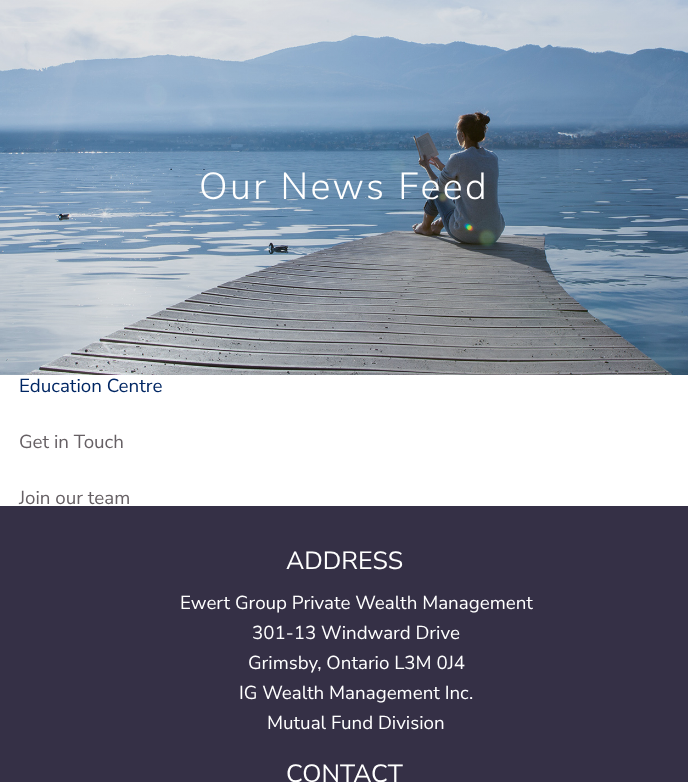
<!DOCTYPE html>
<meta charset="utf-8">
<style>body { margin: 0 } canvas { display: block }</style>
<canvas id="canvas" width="688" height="782"></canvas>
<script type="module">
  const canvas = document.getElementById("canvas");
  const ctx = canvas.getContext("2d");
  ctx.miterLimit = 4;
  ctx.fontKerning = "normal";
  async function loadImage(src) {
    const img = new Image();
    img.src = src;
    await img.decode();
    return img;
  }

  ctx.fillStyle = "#ffffff";
  ctx.fillRect(0, 0, 688, 782);
  ctx.drawImage(await loadImage("img1.png"), 0, 0, 688, 375);
  ctx.letterSpacing = "2.5px";
  ctx.font = "300 37.5px Nunito Sans";
  ctx.fillText("Our News Feed", 199, 199);
  ctx.letterSpacing = "0px";
  ctx.font = "18.75px Nunito Sans";
  ctx.fillStyle = "#002663";
  ctx.fillText("Education Centre", 19, 392);
  ctx.fillStyle = "#666064";
  ctx.fillText("Get in Touch", 19, 448);
  ctx.fillText("Join our team", 19, 504);
  ctx.fillStyle = "#353046";
  ctx.fillRect(0, 506, 688, 276);
  ctx.font = "25px Nunito Sans";
  ctx.fillStyle = "#ffffff";
  ctx.fillText("ADDRESS", 286, 569);
  ctx.font = "18.75px Nunito Sans";
  ctx.fillText("Ewert Group Private Wealth Management", 180, 609);
  ctx.fillText("301-13 Windward Drive", 252, 639);
  ctx.fillText("Grimsby, Ontario L3M 0J4", 248, 669);
  ctx.fillText("IG Wealth Management Inc.", 239, 699);
  ctx.fillText("Mutual Fund Division", 267, 729);
  ctx.font = "25px Nunito Sans";
  ctx.fillText("CONTACT", 286, 782);
</script>
